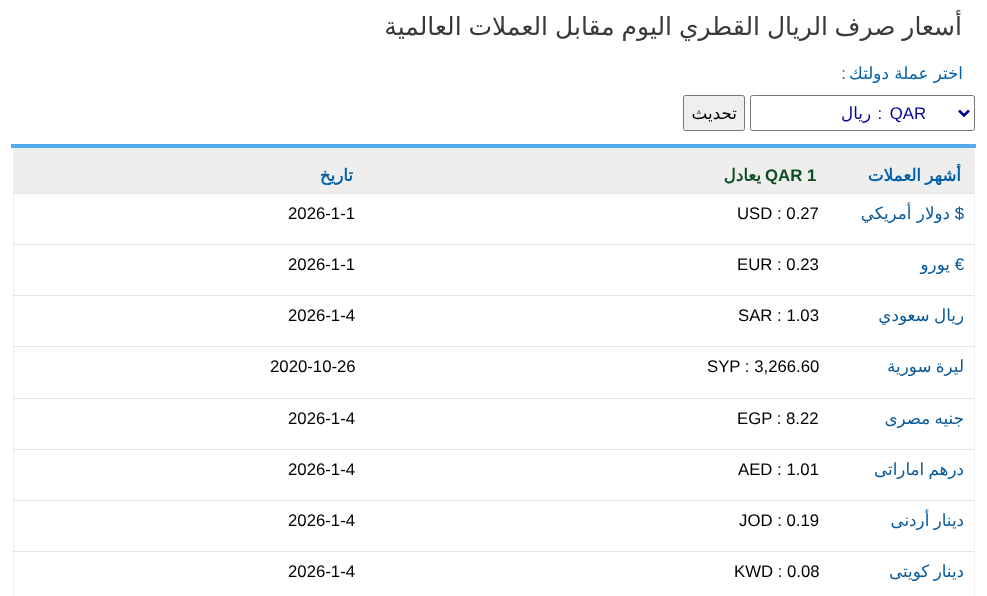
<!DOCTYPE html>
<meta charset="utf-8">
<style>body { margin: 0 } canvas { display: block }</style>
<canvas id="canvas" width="987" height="596"></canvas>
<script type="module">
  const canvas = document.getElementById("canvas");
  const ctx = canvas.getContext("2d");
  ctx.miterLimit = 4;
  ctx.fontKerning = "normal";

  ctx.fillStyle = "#ffffff";
  ctx.fillRect(0, 0, 987, 596);
  ctx.wordSpacing = "-1px";
  ctx.direction = "rtl";
  ctx.font = "25px DejaVu Sans";
  ctx.fillStyle = "#3a3939";
  ctx.fillText("أسعار صرف", 962, 35);
  ctx.fillText("الريال القطري", 828, 35);
  ctx.fillText("اليوم مقابل العملات العالمية", 672, 35);
  ctx.wordSpacing = "0px";
  ctx.font = "16.75px DejaVu Sans";
  ctx.fillStyle = "#0060aa";
  ctx.fillText("اختر عملة دولتك", 963, 79);
  ctx.font = "16.75px Liberation Sans";
  ctx.fillText(":", 846, 79);
  ctx.beginPath();
  ctx.roundRect(750.5, 95.5, 224, 35, 2);
  ctx.strokeStyle = "#767676";
  ctx.stroke();
  ctx.beginPath();
  ctx.moveTo(959, 110.5);
  ctx.lineTo(964, 115.5);
  ctx.lineTo(969, 110.5);
  ctx.strokeStyle = "#000099";
  ctx.lineWidth = 2.5;
  ctx.stroke();
  ctx.wordSpacing = "3px";
  ctx.fillStyle = "#000099";
  ctx.fillText("QAR :", 926, 119);
  ctx.wordSpacing = "0px";
  ctx.font = "16.75px DejaVu Sans";
  ctx.fillText("ريال", 871, 119);
  ctx.fillStyle = "#efefef";
  ctx.beginPath();
  ctx.roundRect(683.5, 95.5, 61, 35, 2);
  ctx.fill();
  ctx.strokeStyle = "#767676";
  ctx.lineWidth = 1;
  ctx.stroke();
  ctx.fillStyle = "#000000";
  ctx.fillText("تحديث", 737, 119);
  ctx.fillStyle = "#f3efef";
  ctx.fillRect(974, 144, 1, 452);
  ctx.fillRect(13, 144, 1, 452);
  ctx.fillStyle = "#52abea";
  ctx.fillRect(11, 144, 965, 4);
  ctx.fillStyle = "#eeeeee";
  ctx.fillRect(14, 148, 960, 45);
  ctx.wordSpacing = "-1px";
  ctx.font = "bold 16.75px DejaVu Sans";
  ctx.fillStyle = "#0060aa";
  ctx.fillText("أشهر العملات", 961, 181);
  ctx.wordSpacing = "0px";
  ctx.direction = "ltr";
  ctx.font = "bold 16.75px Liberation Sans";
  ctx.fillStyle = "#0a4d21";
  ctx.fillText("1", 807, 181);
  ctx.fillText("QAR", 765, 181);
  ctx.direction = "rtl";
  ctx.font = "bold 16.75px DejaVu Sans";
  ctx.fillText("يعادل", 761, 181);
  ctx.fillStyle = "#0060aa";
  ctx.fillText("تاريخ", 353, 181);
  ctx.font = "16.75px Liberation Sans";
  ctx.fillStyle = "#04589a";
  ctx.fillText("$", 964, 219);
  ctx.font = "16.75px DejaVu Sans";
  ctx.fillText("دولار أمريكي", 950, 219);
  ctx.direction = "ltr";
  ctx.font = "16.75px Liberation Sans";
  ctx.fillStyle = "#000000";
  ctx.fillText("USD : 0.27", 737, 219);
  ctx.fillStyle = "#e8e4e4";
  ctx.fillRect(13, 193, 962, 1);
  ctx.fillStyle = "#000000";
  ctx.fillText("2026-1-1", 288, 219);
  ctx.direction = "rtl";
  ctx.fillStyle = "#04589a";
  ctx.fillText("€", 964, 270);
  ctx.font = "16.75px DejaVu Sans";
  ctx.fillText("يورو", 950, 270);
  ctx.direction = "ltr";
  ctx.font = "16.75px Liberation Sans";
  ctx.fillStyle = "#000000";
  ctx.fillText("EUR : 0.23", 737, 270);
  ctx.fillStyle = "#e8e4e4";
  ctx.fillRect(13, 244, 962, 1);
  ctx.fillStyle = "#000000";
  ctx.fillText("2026-1-1", 288, 270);
  ctx.wordSpacing = "-1px";
  ctx.direction = "rtl";
  ctx.font = "16.75px DejaVu Sans";
  ctx.fillStyle = "#04589a";
  ctx.fillText("ريال سعودي", 964, 321);
  ctx.wordSpacing = "0px";
  ctx.direction = "ltr";
  ctx.font = "16.75px Liberation Sans";
  ctx.fillStyle = "#000000";
  ctx.fillText("SAR : 1.03", 738, 321);
  ctx.fillStyle = "#e8e4e4";
  ctx.fillRect(13, 295, 962, 1);
  ctx.fillStyle = "#000000";
  ctx.fillText("2026-1-4", 288, 321);
  ctx.wordSpacing = "-1px";
  ctx.direction = "rtl";
  ctx.font = "16.75px DejaVu Sans";
  ctx.fillStyle = "#04589a";
  ctx.fillText("ليرة سورية", 964, 372);
  ctx.wordSpacing = "0px";
  ctx.direction = "ltr";
  ctx.font = "16.75px Liberation Sans";
  ctx.fillStyle = "#000000";
  ctx.fillText("SYP : 3,266.60", 707, 372);
  ctx.fillStyle = "#e8e4e4";
  ctx.fillRect(13, 346, 962, 1);
  ctx.fillStyle = "#000000";
  ctx.fillText("2020-10-26", 270, 372);
  ctx.wordSpacing = "-1px";
  ctx.direction = "rtl";
  ctx.font = "16.75px DejaVu Sans";
  ctx.fillStyle = "#04589a";
  ctx.fillText("جنيه مصرى", 964, 424);
  ctx.wordSpacing = "0px";
  ctx.direction = "ltr";
  ctx.font = "16.75px Liberation Sans";
  ctx.fillStyle = "#000000";
  ctx.fillText("EGP : 8.22", 737, 424);
  ctx.fillStyle = "#e8e4e4";
  ctx.fillRect(13, 398, 962, 1);
  ctx.fillStyle = "#000000";
  ctx.fillText("2026-1-4", 288, 424);
  ctx.wordSpacing = "-1px";
  ctx.direction = "rtl";
  ctx.font = "16.75px DejaVu Sans";
  ctx.fillStyle = "#04589a";
  ctx.fillText("درهم اماراتى", 964, 475);
  ctx.wordSpacing = "0px";
  ctx.direction = "ltr";
  ctx.font = "16.75px Liberation Sans";
  ctx.fillStyle = "#000000";
  ctx.fillText("AED : 1.01", 738, 475);
  ctx.fillStyle = "#e8e4e4";
  ctx.fillRect(13, 449, 962, 1);
  ctx.fillStyle = "#000000";
  ctx.fillText("2026-1-4", 288, 475);
  ctx.wordSpacing = "-1px";
  ctx.direction = "rtl";
  ctx.font = "16.75px DejaVu Sans";
  ctx.fillStyle = "#04589a";
  ctx.fillText("دينار أردنى", 964, 526);
  ctx.wordSpacing = "0px";
  ctx.direction = "ltr";
  ctx.font = "16.75px Liberation Sans";
  ctx.fillStyle = "#000000";
  ctx.fillText("JOD : 0.19", 739, 526);
  ctx.fillStyle = "#e8e4e4";
  ctx.fillRect(13, 500, 962, 1);
  ctx.fillStyle = "#000000";
  ctx.fillText("2026-1-4", 288, 526);
  ctx.wordSpacing = "-1px";
  ctx.direction = "rtl";
  ctx.font = "16.75px DejaVu Sans";
  ctx.fillStyle = "#04589a";
  ctx.fillText("دينار كويتى", 964, 577);
  ctx.wordSpacing = "0px";
  ctx.direction = "ltr";
  ctx.font = "16.75px Liberation Sans";
  ctx.fillStyle = "#000000";
  ctx.fillText("KWD : 0.08", 734, 577);
  ctx.fillStyle = "#e8e4e4";
  ctx.fillRect(13, 551, 962, 1);
  ctx.fillStyle = "#000000";
  ctx.fillText("2026-1-4", 288, 577);
</script>
